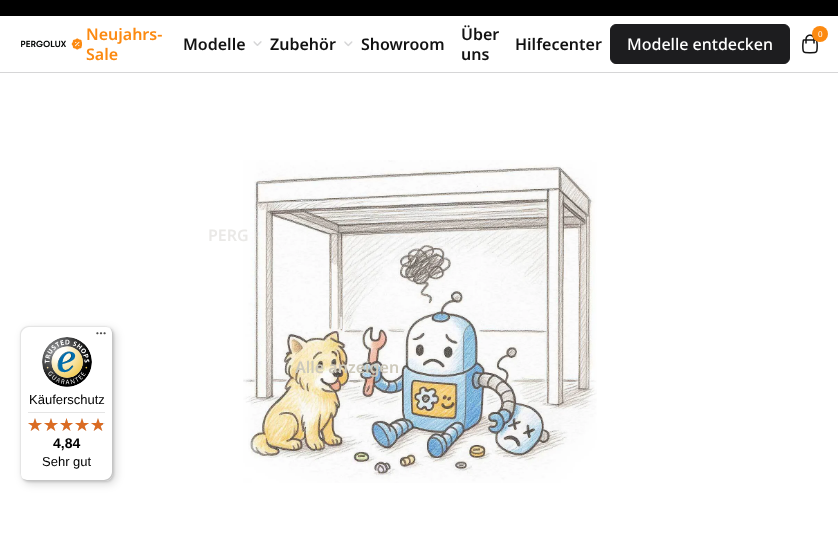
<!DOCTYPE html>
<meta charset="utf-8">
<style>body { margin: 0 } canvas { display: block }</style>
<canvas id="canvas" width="838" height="540"></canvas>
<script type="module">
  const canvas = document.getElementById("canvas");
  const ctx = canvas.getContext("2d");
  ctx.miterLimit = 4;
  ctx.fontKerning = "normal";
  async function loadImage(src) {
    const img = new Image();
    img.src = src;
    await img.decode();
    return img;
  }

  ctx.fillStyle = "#ffffff";
  ctx.fillRect(0, 0, 838, 540);
  ctx.fillStyle = "#000000";
  ctx.fillRect(0, 0, 838, 16);
  ctx.fillStyle = "#d6d6d7";
  ctx.fillRect(0, 72, 838, 1);
  ctx.drawImage(await loadImage("img1.png"), 21, 40, 45, 8);
  ctx.drawImage(await loadImage("img2.png"), 71, 38, 11, 12);
  ctx.font = "600 16px Noto Sans";
  ctx.fillStyle = "#fc8a11";
  ctx.fillText("Neujahrs-", 86, 40);
  ctx.fillText("Sale", 86, 60);
  ctx.fillStyle = "#121212";
  ctx.fillText("Modelle", 183, 50);
  ctx.drawImage(await loadImage("img3.png"), 253, 41, 9, 5);
  ctx.drawImage(await loadImage("img13.png"), 243, 160, 354, 323);
  ctx.fillStyle = "#eae9e7";
  ctx.fillText("PERG", 208, 241);
  ctx.fillStyle = "#121212";
  ctx.fillText("Zubehör", 270, 50);
  ctx.drawImage(await loadImage("img4.png"), 344, 41, 9, 6);
  ctx.fillStyle = "#f2f0ef";
  ctx.fillText("l", 339, 329);
  ctx.fillStyle = "#cecabc";
  ctx.fillText("Alle anzeigen", 295, 373);
  ctx.fillStyle = "#121212";
  ctx.fillText("Showroom", 361, 50);
  ctx.fillText("Über", 461, 40);
  ctx.fillText("uns", 461, 60);
  ctx.fillText("Hilfecenter", 515, 50);
  ctx.drawImage(await loadImage("img5.png"), 802, 34, 16, 20);
  ctx.fillStyle = "#fc8a11";
  ctx.beginPath();
  ctx.arc(820, 34, 8, 0, Math.PI * 2);
  ctx.fill();
  ctx.font = "8px Noto Sans";
  ctx.fillStyle = "#ffffff";
  ctx.fillText("0", 818, 37);
  ctx.fillStyle = "#1d1d1f";
  ctx.beginPath();
  ctx.roundRect(610.5, 24.5, 179, 39, 5.5);
  ctx.fill();
  ctx.strokeStyle = "#1d1d1f";
  ctx.stroke();
  ctx.font = "500 16px Noto Sans";
  ctx.fillStyle = "#ffffff";
  ctx.fillText("Modelle entdecken", 627, 50);
  ctx.fillStyle = "rgba(0, 0, 0, 0.15)";
  ctx.filter = "blur(4px)";
  ctx.beginPath();
  ctx.roundRect(23, 329, 93, 155, 8);
  ctx.fill();
  ctx.filter = "none";
  ctx.filter = "blur(1px)";
  ctx.beginPath();
  ctx.roundRect(21, 327, 93, 155, 8);
  ctx.fill();
  ctx.filter = "none";
  ctx.fillStyle = "#ffffff";
  ctx.beginPath();
  ctx.roundRect(20, 326, 93, 155, 8);
  ctx.fill();
  ctx.fillStyle = "#e5e5e5";
  ctx.beginPath();
  ctx.moveTo(29, 327);
  ctx.lineTo(106, 327);
  ctx.bezierCurveTo(108, 327, 110, 328, 112, 330);
  ctx.bezierCurveTo(110, 328, 108, 326, 105, 326);
  ctx.lineTo(28, 326);
  ctx.bezierCurveTo(24, 326, 20, 330, 20, 334);
  ctx.lineTo(20, 473);
  ctx.bezierCurveTo(20, 476, 22, 478, 24, 480);
  ctx.bezierCurveTo(22, 478, 21, 476, 21, 474);
  ctx.lineTo(21, 335);
  ctx.bezierCurveTo(21, 331, 25, 327, 29, 327);
  ctx.closePath();
  ctx.fill();
  ctx.fillStyle = "#cccccc";
  ctx.beginPath();
  ctx.moveTo(21, 477);
  ctx.bezierCurveTo(23, 479, 25, 481, 28, 481);
  ctx.lineTo(105, 481);
  ctx.bezierCurveTo(109, 481, 113, 477, 113, 473);
  ctx.lineTo(113, 334);
  ctx.bezierCurveTo(113, 331, 111, 329, 109, 327);
  ctx.bezierCurveTo(111, 329, 112, 331, 112, 333);
  ctx.lineTo(112, 472);
  ctx.bezierCurveTo(112, 476, 108, 480, 104, 480);
  ctx.lineTo(27, 480);
  ctx.bezierCurveTo(25, 480, 23, 479, 21, 477);
  ctx.closePath();
  ctx.fill();
  ctx.fillStyle = "rgba(50, 50, 50, 0.2)";
  ctx.beginPath();
  ctx.moveTo(22, 478);
  ctx.bezierCurveTo(23, 480, 26, 481, 28, 481);
  ctx.lineTo(105, 481);
  ctx.bezierCurveTo(109, 481, 113, 477, 113, 473);
  ctx.lineTo(113, 334);
  ctx.bezierCurveTo(113, 332, 112, 329, 110, 328);
  ctx.bezierCurveTo(111, 329, 112, 331, 112, 333);
  ctx.lineTo(112, 472);
  ctx.bezierCurveTo(112, 477, 109, 480, 104, 480);
  ctx.lineTo(27, 480);
  ctx.bezierCurveTo(25, 480, 23, 479, 22, 478);
  ctx.closePath();
  ctx.fill();
  ctx.fillStyle = "rgba(255, 255, 255, 0.3)";
  ctx.beginPath();
  ctx.moveTo(112, 334);
  ctx.bezierCurveTo(112, 329, 109, 326, 104, 326);
  ctx.lineTo(105, 326);
  ctx.bezierCurveTo(109, 326, 113, 330, 113, 334);
  ctx.lineTo(113, 473);
  ctx.bezierCurveTo(113, 477, 109, 481, 105, 481);
  ctx.lineTo(28, 481);
  ctx.bezierCurveTo(24, 481, 20, 477, 20, 473);
  ctx.lineTo(20, 472);
  ctx.bezierCurveTo(20, 477, 23, 480, 28, 480);
  ctx.lineTo(104, 480);
  ctx.bezierCurveTo(109, 480, 112, 477, 112, 472);
  ctx.closePath();
  ctx.fill();
  ctx.drawImage(await loadImage("img6.png"), 96, 332, 10, 3);
  ctx.drawImage(await loadImage("img7.png"), 42, 337, 50, 50);
  ctx.font = "13px Liberation Sans";
  ctx.fillStyle = "#000000";
  ctx.fillText("Käuferschutz", 29, 404);
  ctx.fillStyle = "#e5e5e5";
  ctx.fillRect(28, 412, 77, 1);
  ctx.drawImage(await loadImage("img8.png"), 28, 418, 14, 13);
  ctx.drawImage(await loadImage("img8.png"), 44, 418, 14, 13);
  ctx.drawImage(await loadImage("img9.png"), 60, 418, 13, 13);
  ctx.drawImage(await loadImage("img8.png"), 75, 418, 14, 13);
  ctx.drawImage(await loadImage("img8.png"), 91, 418, 14, 13);
  ctx.drawImage(await loadImage("img10.png"), 28, 418, 14, 13);
  ctx.drawImage(await loadImage("img10.png"), 44, 418, 14, 13);
  ctx.drawImage(await loadImage("img11.png"), 60, 418, 13, 13);
  ctx.drawImage(await loadImage("img10.png"), 75, 418, 14, 13);
  ctx.drawImage(await loadImage("img12.png"), 91, 418, 12, 13);
  ctx.font = "bold 14px Liberation Sans";
  ctx.fillStyle = "#000000";
  ctx.fillText("4,84", 53, 448);
  ctx.font = "13px Liberation Sans";
  ctx.fillText("Sehr gut", 42, 466);
</script>
